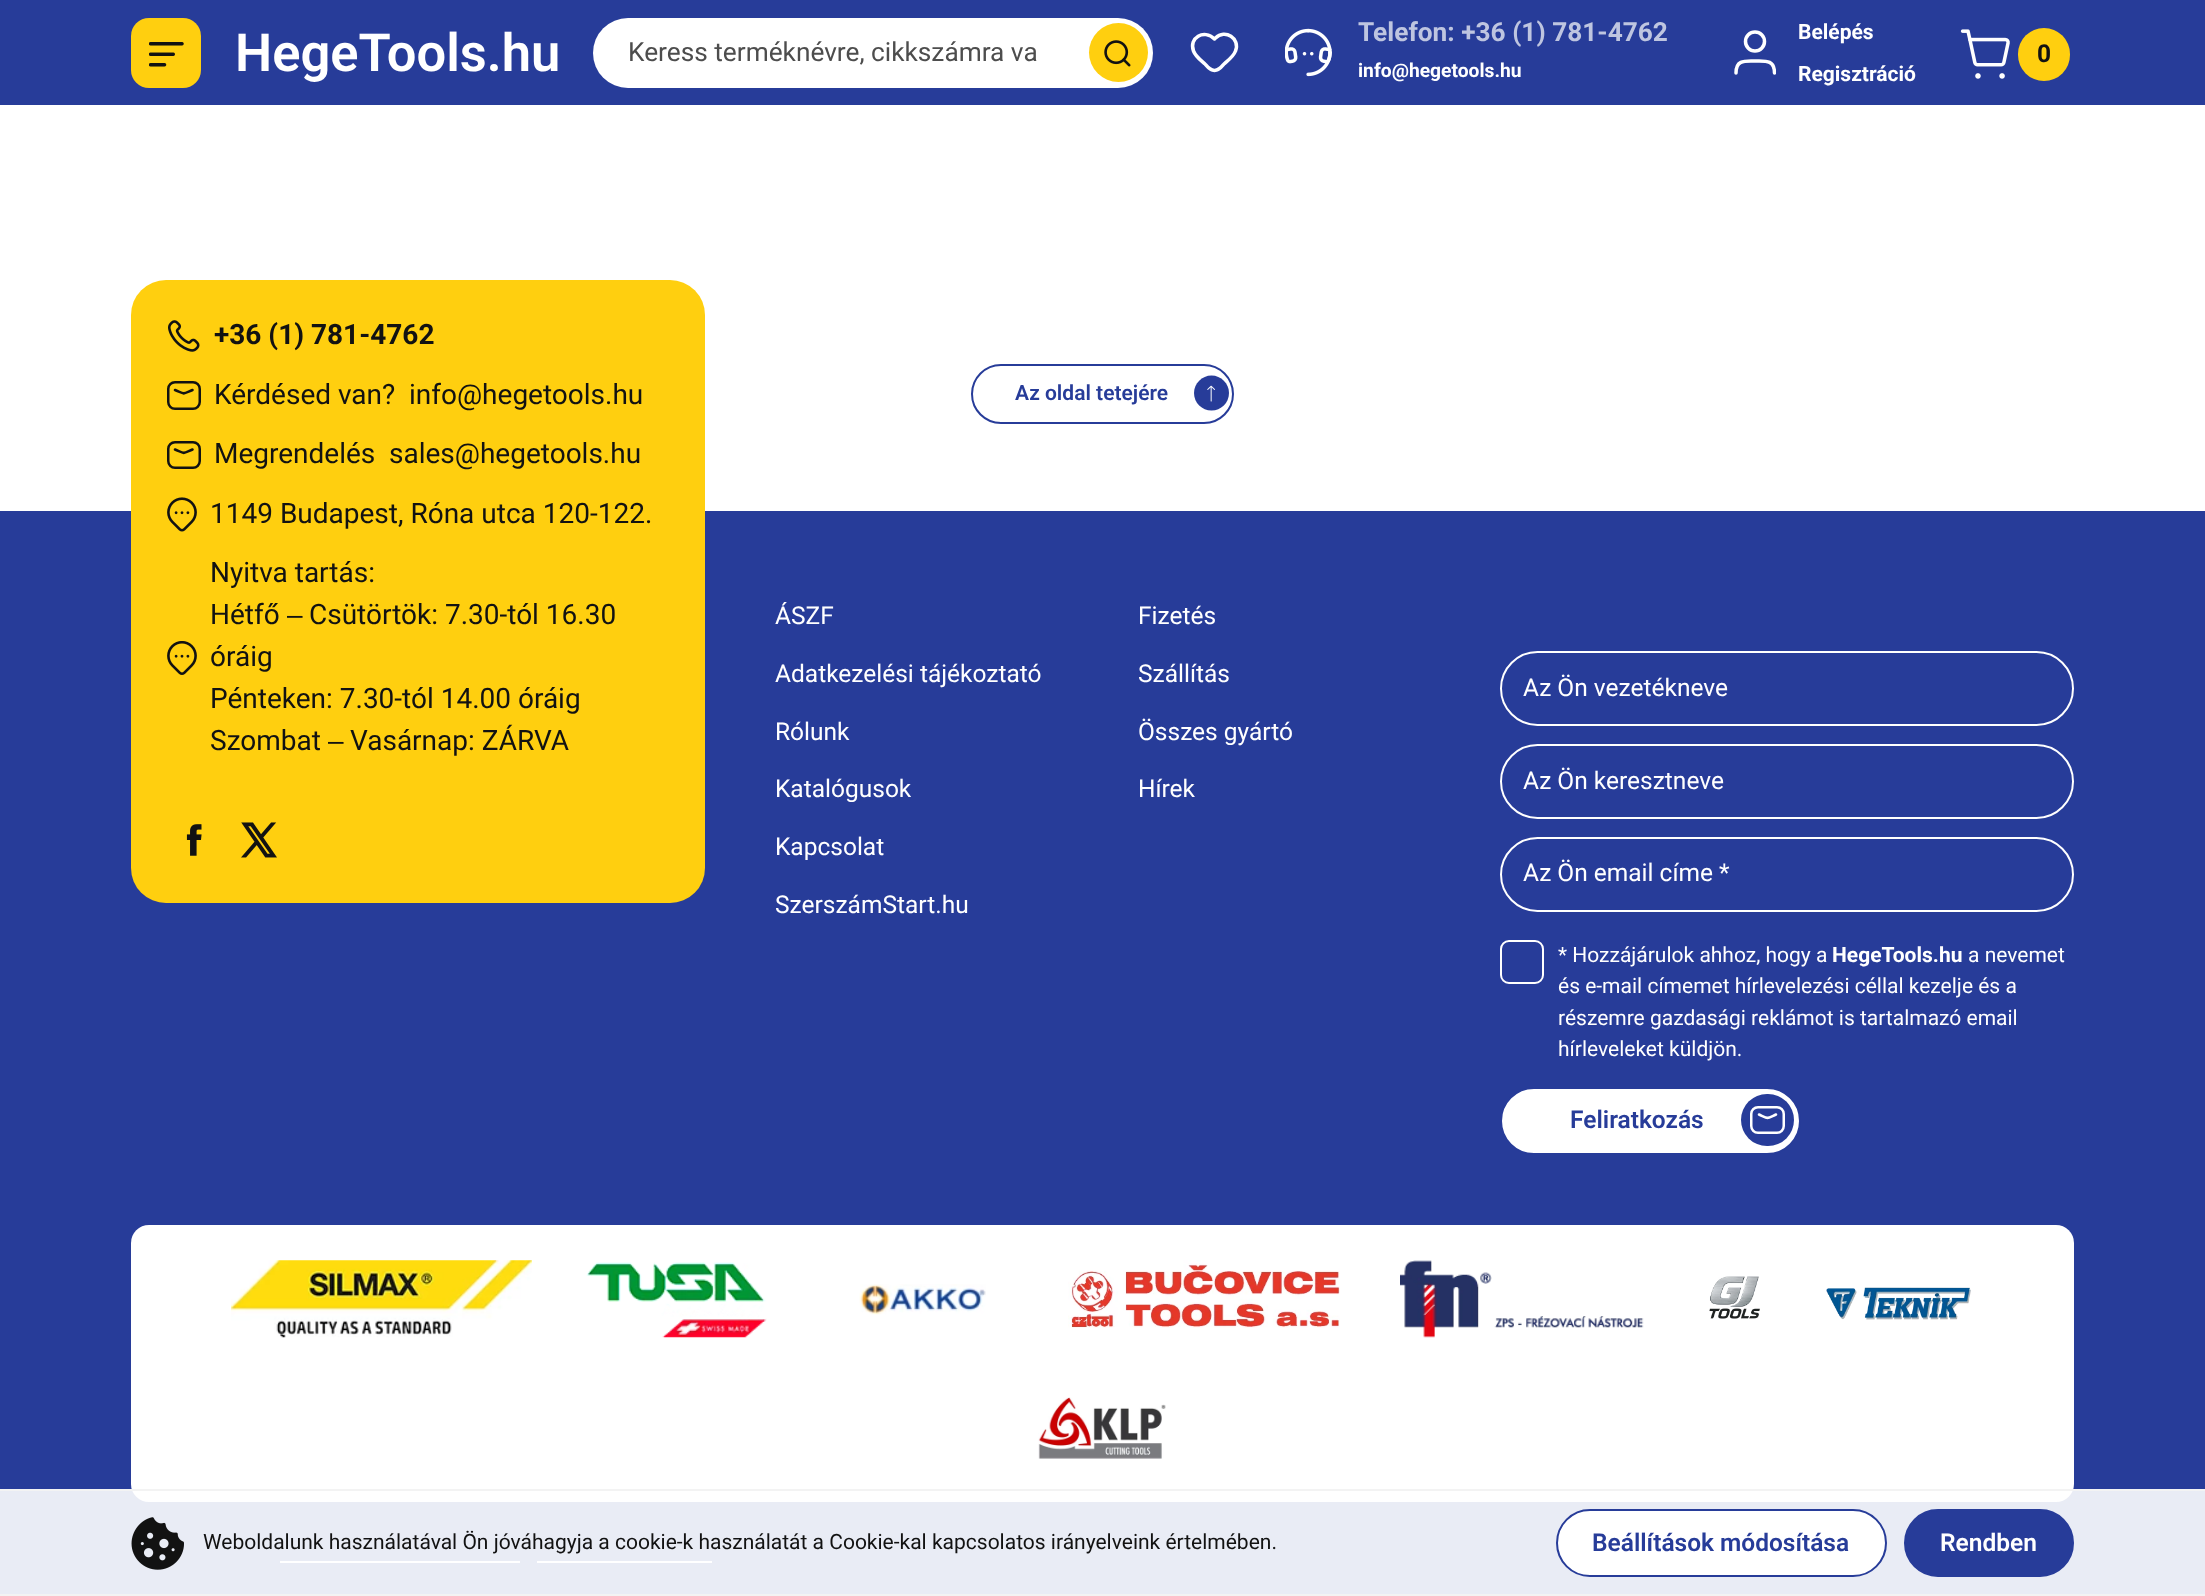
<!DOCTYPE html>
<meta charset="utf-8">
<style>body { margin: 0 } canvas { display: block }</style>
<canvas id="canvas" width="2205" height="1596"></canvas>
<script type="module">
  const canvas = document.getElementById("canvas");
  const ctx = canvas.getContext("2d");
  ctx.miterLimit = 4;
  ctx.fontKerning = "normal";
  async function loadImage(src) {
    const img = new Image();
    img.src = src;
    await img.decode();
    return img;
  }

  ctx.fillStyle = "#ffffff";
  ctx.fillRect(0, 0, 2205, 1596);
  ctx.fillStyle = "#273c99";
  ctx.fillRect(0, 0, 2205, 105);
  ctx.fillStyle = "#ffcf0f";
  ctx.beginPath();
  ctx.roundRect(131, 18, 70, 70, 18);
  ctx.fill();
  ctx.drawImage(await loadImage("img1.png"), 149, 42, 35, 25);
  ctx.font = "600 52.5px Roboto";
  ctx.fillStyle = "#ffffff";
  ctx.fillText("HegeTools.hu", 235, 71);
  ctx.beginPath();
  ctx.roundRect(593, 18, 560, 70, 35);
  ctx.fill();
  ctx.font = "26.25px Roboto";
  ctx.fillStyle = "#4d4d4d";
  ctx.fillText("Keress terméknévre, cikkszámra va", 628, 61);
  ctx.fillStyle = "#ffcf0f";
  ctx.beginPath();
  ctx.arc(1118.5, 52.5, 29.5, 0, Math.PI * 2);
  ctx.fill();
  ctx.drawImage(await loadImage("img2.png"), 1104, 40, 27, 27);
  ctx.beginPath();
  ctx.moveTo(1215.5, 38);
  ctx.lineTo(1214.5, 39);
  ctx.bezierCurveTo(1204, 28.5, 1188.5, 38, 1193.5, 51);
  ctx.bezierCurveTo(1195.5, 56.5, 1201, 60.5, 1205, 64);
  ctx.bezierCurveTo(1207.5, 67, 1210, 70.5, 1214.5, 70.5);
  ctx.bezierCurveTo(1219, 70.5, 1221.5, 67, 1224, 64);
  ctx.bezierCurveTo(1228, 60.5, 1233.5, 56.5, 1235.5, 51);
  ctx.bezierCurveTo(1240.5, 38.5, 1225, 28.5, 1215.5, 38);
  ctx.closePath();
  ctx.strokeStyle = "#ffffff";
  ctx.lineWidth = 3.5;
  ctx.lineCap = "round";
  ctx.lineJoin = "round";
  ctx.stroke();
  ctx.drawImage(await loadImage("img3.png"), 1285, 28, 47, 49);
  ctx.font = "bold 26.25px Roboto";
  ctx.fillStyle = "#bec5e0";
  ctx.fillText("Telefon: +36 (1) 781-4762", 1358, 41);
  ctx.font = "bold 19.25px Roboto";
  ctx.fillStyle = "#ffffff";
  ctx.fillText("info@hegetools.hu", 1358, 77);
  ctx.beginPath();
  ctx.arc(1755, 41.5, 9.5, 0, Math.PI * 2);
  ctx.stroke();
  ctx.save();
  ctx.beginPath();
  ctx.rect(1734, 30, 42, 45);
  ctx.clip();
  ctx.beginPath();
  ctx.moveTo(1774.5, 73);
  ctx.bezierCurveTo(1774.5, 59.5, 1765.5, 61, 1755, 61);
  ctx.bezierCurveTo(1745, 61, 1736, 59.5, 1736, 73);
  ctx.stroke();
  ctx.restore();
  ctx.font = "bold 21px Roboto";
  ctx.fillText("Belépés", 1798, 39);
  ctx.fillText("Regisztráció", 1798, 81);
  ctx.drawImage(await loadImage("img4.png"), 1960, 29, 50, 50);
  ctx.fillStyle = "#ffcf0f";
  ctx.beginPath();
  ctx.roundRect(2018, 28, 52, 53, 26);
  ctx.fill();
  ctx.font = "bold 24.5px Roboto";
  ctx.fillStyle = "#121212";
  ctx.fillText("0", 2037, 62);
  ctx.fillStyle = "#273c99";
  ctx.fillRect(0, 511, 2205, 1083);
  ctx.fillStyle = "#ffcf0f";
  ctx.beginPath();
  ctx.roundRect(131, 280, 574, 623, 35);
  ctx.fill();
  ctx.drawImage(await loadImage("img5.png"), 168, 320, 32, 32);
  ctx.font = "bold 28px Roboto";
  ctx.fillStyle = "#121212";
  ctx.fillText("+36 (1) 781-4762", 214, 344);
  ctx.beginPath();
  ctx.roundRect(168.25, 382.25, 31.5, 26.5, 6.75);
  ctx.strokeStyle = "#121212";
  ctx.lineWidth = 2.5;
  ctx.lineJoin = "miter";
  ctx.stroke();
  ctx.beginPath();
  ctx.moveTo(175, 390);
  ctx.bezierCurveTo(185.5, 394.5, 182, 394.5, 192.5, 390);
  ctx.lineWidth = 2.6;
  ctx.lineJoin = "round";
  ctx.stroke();
  ctx.font = "28px Roboto";
  ctx.fillText("Kérdésed van?", 214, 404);
  ctx.fillText("info@hegetools.hu", 409, 404);
  ctx.beginPath();
  ctx.roundRect(168.25, 442.25, 31.5, 25.5, 6.75);
  ctx.lineWidth = 2.5;
  ctx.lineJoin = "miter";
  ctx.stroke();
  ctx.beginPath();
  ctx.moveTo(175, 449.5);
  ctx.bezierCurveTo(185.5, 454, 182, 454, 192.5, 449.5);
  ctx.lineWidth = 2.6;
  ctx.lineJoin = "round";
  ctx.stroke();
  ctx.fillText("Megrendelés", 214, 463);
  ctx.fillText("sales@hegetools.hu", 389, 463);
  ctx.drawImage(await loadImage("img6.png"), 167, 497, 30, 35);
  ctx.fillText("1149 Budapest, Róna utca 120-122.", 210, 523);
  ctx.drawImage(await loadImage("img7.png"), 167, 641, 30, 34);
  ctx.fillText("Nyitva tartás:", 210, 582);
  ctx.fillText("Hétfő", 210, 624);
  ctx.font = "28px Liberation Sans";
  ctx.fillText("–", 287, 624);
  ctx.font = "28px Roboto";
  ctx.fillText("Csütörtök: 7.30-tól 16.30", 309, 624);
  ctx.fillText("óráig", 210, 666);
  ctx.fillText("Pénteken: 7.30-tól 14.00 óráig", 210, 708);
  ctx.fillText("Szombat", 210, 750);
  ctx.font = "28px Liberation Sans";
  ctx.fillText("–", 328, 750);
  ctx.font = "28px Roboto";
  ctx.fillText("Vasárnap: ZÁRVA", 350, 750);
  ctx.drawImage(await loadImage("img8.png"), 186, 824, 16, 32);
  ctx.drawImage(await loadImage("img9.png"), 241, 822, 36, 36);
  ctx.font = "24.5px Roboto";
  ctx.fillStyle = "#ffffff";
  ctx.fillText("ÁSZF", 775, 624);
  ctx.fillText("Adatkezelési tájékoztató", 775, 682);
  ctx.fillText("Rólunk", 775, 740);
  ctx.fillText("Katalógusok", 775, 797);
  ctx.fillText("Kapcsolat", 775, 855);
  ctx.fillText("SzerszámStart.hu", 775, 913);
  ctx.fillText("Fizetés", 1138, 624);
  ctx.fillText("Szállítás", 1138, 682);
  ctx.fillText("Összes gyártó", 1138, 740);
  ctx.fillText("Hírek", 1138, 797);
  ctx.beginPath();
  ctx.roundRect(1501, 652, 572, 73, 36.5);
  ctx.strokeStyle = "#ffffff";
  ctx.lineWidth = 2;
  ctx.lineJoin = "miter";
  ctx.stroke();
  ctx.fillText("Az Ön vezetékneve", 1523, 696);
  ctx.beginPath();
  ctx.roundRect(1501, 745, 572, 73, 36.5);
  ctx.stroke();
  ctx.fillText("Az Ön keresztneve", 1523, 789);
  ctx.beginPath();
  ctx.roundRect(1501, 838, 572, 73, 36.5);
  ctx.stroke();
  ctx.fillText("Az Ön email címe *", 1523, 881);
  ctx.beginPath();
  ctx.roundRect(1501, 941, 42, 42, 8);
  ctx.stroke();
  ctx.font = "21px Roboto";
  ctx.fillText("* Hozzájárulok ahhoz, hogy a", 1558, 962);
  ctx.font = "bold 21px Roboto";
  ctx.fillText("HegeTools.hu", 1832, 962);
  ctx.font = "21px Roboto";
  ctx.fillText("a nevemet", 1968, 962);
  ctx.fillText("és e-mail címemet hírlevelezési céllal kezelje és a", 1558, 993);
  ctx.fillText("részemre gazdasági reklámot is tartalmazó email", 1558, 1025);
  ctx.fillText("hírleveleket küldjön.", 1558, 1056);
  ctx.beginPath();
  ctx.roundRect(1501, 1088, 299, 66, 33);
  ctx.fill();
  ctx.strokeStyle = "#273c99";
  ctx.stroke();
  ctx.font = "600 24.5px Roboto";
  ctx.fillStyle = "#273c99";
  ctx.fillText("Feliratkozás", 1570, 1128);
  ctx.beginPath();
  ctx.roundRect(1741, 1094, 53, 52, 26);
  ctx.fill();
  ctx.beginPath();
  ctx.roundRect(1751.25, 1107.25, 32.5, 25.5, 6.75);
  ctx.strokeStyle = "#ffffff";
  ctx.lineWidth = 2.5;
  ctx.stroke();
  ctx.beginPath();
  ctx.moveTo(1759, 1114.5);
  ctx.bezierCurveTo(1769, 1119, 1766, 1119, 1776, 1114.5);
  ctx.lineWidth = 2.6;
  ctx.lineJoin = "round";
  ctx.stroke();
  ctx.fillStyle = "#ffffff";
  ctx.beginPath();
  ctx.roundRect(131, 1225, 1943, 277, 18);
  ctx.fill();
  ctx.drawImage(await loadImage("img10.png"), 231, 1260, 301, 78);
  ctx.drawImage(await loadImage("img11.png"), 586, 1262, 181, 76);
  ctx.drawImage(await loadImage("img12.png"), 859, 1284, 127, 31);
  ctx.drawImage(await loadImage("img13.png"), 1068, 1260, 272, 68);
  ctx.drawImage(await loadImage("img14.png"), 1400, 1260, 244, 78);
  ctx.drawImage(await loadImage("img15.png"), 1709, 1276, 51, 43);
  ctx.drawImage(await loadImage("img16.png"), 1826, 1287, 145, 33);
  ctx.drawImage(await loadImage("img17.png"), 1038, 1397, 128, 62);
  ctx.fillRect(280, 1561, 240, 2);
  ctx.fillRect(537, 1561, 175, 2);
  ctx.beginPath();
  ctx.roundRect(972, 365, 261, 58, 29);
  ctx.strokeStyle = "#273c99";
  ctx.lineWidth = 2;
  ctx.lineJoin = "miter";
  ctx.stroke();
  ctx.font = "600 21px Roboto";
  ctx.fillStyle = "#273c99";
  ctx.fillText("Az oldal tetejére", 1015, 400);
  ctx.beginPath();
  ctx.moveTo(1194, 393);
  ctx.bezierCurveTo(1194, 383.5, 1202, 375.5, 1211.5, 375.5);
  ctx.bezierCurveTo(1221, 375.5, 1229, 383.5, 1229, 393);
  ctx.bezierCurveTo(1229, 403, 1221, 410.5, 1211.5, 410.5);
  ctx.bezierCurveTo(1202, 410.5, 1194, 403, 1194, 393);
  ctx.closePath();
  ctx.fill();
  ctx.drawImage(await loadImage("img18.png"), 1207, 385, 8, 17);
  ctx.fillStyle = "rgba(255, 255, 255, 0.9)";
  ctx.fillRect(0, 1491, 2205, 103);
  ctx.fillStyle = "#f3f3f3";
  ctx.fillRect(0, 1489, 2205, 2);
  ctx.fillRect(0, 1594, 2205, 2);
  ctx.drawImage(await loadImage("img19.png"), 131, 1517, 53, 53);
  ctx.font = "21px Roboto";
  ctx.fillStyle = "#121212";
  ctx.fillText("Weboldalunk használatával Ön jóváhagyja a cookie-k használatát a Cookie-kal kapcsolatos irányelveink értelmében.", 203, 1549);
  ctx.fillStyle = "#ffffff";
  ctx.beginPath();
  ctx.roundRect(1557, 1510, 329, 66, 33);
  ctx.fill();
  ctx.stroke();
  ctx.font = "600 24.5px Roboto";
  ctx.fillStyle = "#273c99";
  ctx.fillText("Beállítások módosítása", 1592, 1551);
  ctx.beginPath();
  ctx.roundRect(1905, 1510, 168, 66, 33);
  ctx.fill();
  ctx.stroke();
  ctx.fillStyle = "#ffffff";
  ctx.fillText("Rendben", 1940, 1551);
</script>
